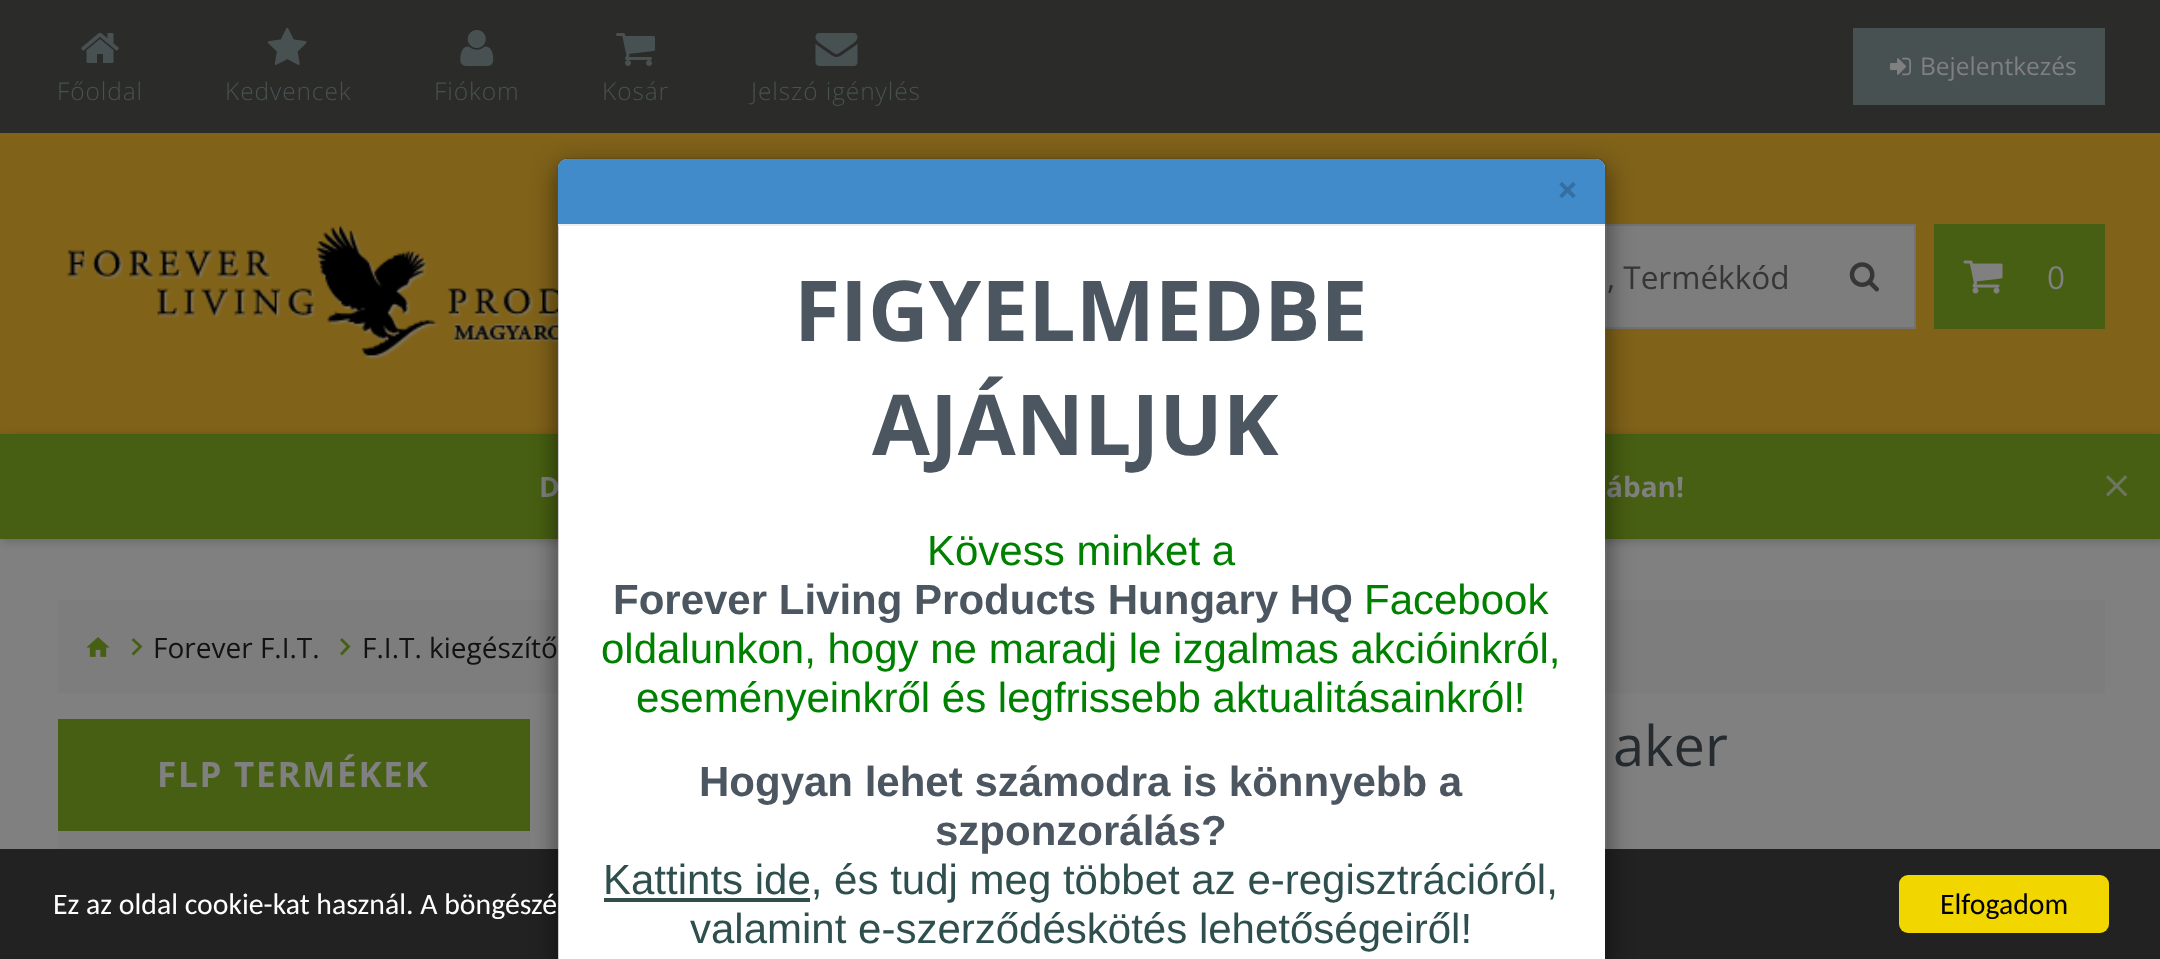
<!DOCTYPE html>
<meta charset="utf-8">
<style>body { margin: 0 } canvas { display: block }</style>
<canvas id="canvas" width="2160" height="959"></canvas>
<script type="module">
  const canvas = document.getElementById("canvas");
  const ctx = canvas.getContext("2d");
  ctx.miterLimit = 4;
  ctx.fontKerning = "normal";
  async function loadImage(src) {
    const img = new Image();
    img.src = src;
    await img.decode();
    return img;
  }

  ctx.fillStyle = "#808080";
  ctx.fillRect(0, 0, 2160, 959);
  ctx.fillStyle = "#806219";
  ctx.fillRect(0, 133, 2160, 301);
  ctx.fillStyle = "#2b2b2a";
  ctx.fillRect(0, 0, 2160, 133);
  ctx.fillStyle = "#485152";
  ctx.fillRect(1853, 28, 252, 77);
  ctx.drawImage(await loadImage("img1.png"), 1890, 57, 21, 19);
  ctx.font = "24.5px Open Sans";
  ctx.fillStyle = "#808080";
  ctx.fillText("Bejelentkezés", 1920, 75);
  ctx.drawImage(await loadImage("img2.png"), 81, 33, 38, 30);
  ctx.letterSpacing = "0.9px";
  ctx.font = "300 24.5px Open Sans";
  ctx.fillStyle = "#485152";
  ctx.fillText("Főoldal", 57, 100);
  ctx.drawImage(await loadImage("img3.png"), 267, 27, 40, 38);
  ctx.fillText("Kedvencek", 225, 100);
  ctx.drawImage(await loadImage("img4.png"), 460, 30, 34, 36);
  ctx.fillText("Fiókom", 434, 100);
  ctx.drawImage(await loadImage("img5.png"), 616, 33, 39, 33);
  ctx.fillText("Kosár", 602, 100);
  ctx.drawImage(await loadImage("img6.png"), 815, 33, 43, 33);
  ctx.fillText("Jelszó igénylés", 751, 100);
  ctx.drawImage(await loadImage("img7.png"), 66, 225, 492, 135);
  ctx.fillStyle = "#7d7d7d";
  ctx.fillRect(1605, 226, 309, 101);
  ctx.strokeStyle = "#727272";
  ctx.lineWidth = 2;
  ctx.strokeRect(1406, 225, 509, 103);
  ctx.letterSpacing = "0px";
  ctx.font = "31.5px Open Sans";
  ctx.fillStyle = "#363636";
  ctx.fillText(", Termékkód", 1607, 289);
  ctx.drawImage(await loadImage("img8.png"), 1849, 262, 30, 30);
  ctx.fillStyle = "#475f12";
  ctx.fillRect(1934, 224, 171, 105);
  ctx.drawImage(await loadImage("img9.png"), 1963, 260, 40, 34);
  ctx.fillStyle = "#808080";
  ctx.fillText("0", 2047, 289);
  ctx.fillStyle = "rgba(0, 0, 0, 0.2)";
  ctx.filter = "blur(4.5px)";
  ctx.beginPath();
  ctx.rect(2, 436, 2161, 105);
  ctx.fill();
  ctx.filter = "none";
  ctx.fillStyle = "#475f12";
  ctx.fillRect(0, 434, 2160, 105);
  ctx.font = "bold 28px Open Sans";
  ctx.fillStyle = "#808080";
  ctx.fillText("D", 539, 497);
  ctx.fillText("ában!", 1606, 497);
  ctx.drawImage(await loadImage("img10.png"), 2106, 475, 22, 22);
  ctx.fillStyle = "#7d7d7d";
  ctx.fillRect(58, 600, 2047, 93);
  ctx.drawImage(await loadImage("img11.png"), 86, 637, 24, 20);
  ctx.fillStyle = "#475f12";
  ctx.beginPath();
  ctx.moveTo(133.5, 638);
  ctx.lineTo(131.5, 640);
  ctx.lineTo(138.5, 646.5);
  ctx.lineTo(131.5, 653.5);
  ctx.lineTo(133.5, 655.5);
  ctx.lineTo(142.5, 646.5);
  ctx.closePath();
  ctx.fill();
  ctx.font = "28px Open Sans";
  ctx.fillStyle = "#121212";
  ctx.fillText("Forever F.I.T.", 153, 658);
  ctx.fillStyle = "#475f12";
  ctx.beginPath();
  ctx.moveTo(342, 638);
  ctx.lineTo(340, 640);
  ctx.lineTo(346.5, 646.5);
  ctx.lineTo(340, 653.5);
  ctx.lineTo(342, 655.5);
  ctx.lineTo(350.5, 646.5);
  ctx.closePath();
  ctx.fill();
  ctx.fillStyle = "#121212";
  ctx.fillText("F.I.T. kiegészítő", 362, 658);
  ctx.font = "56px Open Sans";
  ctx.fillStyle = "#262b30";
  ctx.fillText("aker", 1613, 766);
  ctx.fillStyle = "#475f12";
  ctx.fillRect(58, 719, 472, 112);
  ctx.letterSpacing = "1.75px";
  ctx.font = "bold 35px Open Sans";
  ctx.fillStyle = "#808080";
  ctx.fillText("FLP TERMÉKEK", 157, 787);
  ctx.fillStyle = "#7d7d7d";
  ctx.fillRect(58, 831, 472, 18);
  ctx.fillStyle = "#222222";
  ctx.fillRect(0, 849, 2160, 110);
  ctx.save();
  ctx.beginPath();
  ctx.moveTo(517, 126);
  ctx.lineTo(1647, 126);
  ctx.lineTo(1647, 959);
  ctx.lineTo(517, 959);
  ctx.closePath();
  ctx.moveTo(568, 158);
  ctx.lineTo(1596, 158);
  ctx.bezierCurveTo(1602, 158, 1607, 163, 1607, 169);
  ctx.lineTo(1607, 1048);
  ctx.bezierCurveTo(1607, 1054, 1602, 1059, 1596, 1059);
  ctx.lineTo(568, 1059);
  ctx.bezierCurveTo(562, 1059, 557, 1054, 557, 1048);
  ctx.lineTo(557, 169);
  ctx.bezierCurveTo(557, 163, 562, 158, 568, 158);
  ctx.closePath();
  ctx.clip("evenodd");
  ctx.fillStyle = "rgba(0, 0, 0, 0.5)";
  ctx.filter = "blur(13px)";
  ctx.beginPath();
  ctx.roundRect(557, 166, 1050, 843, 11);
  ctx.fill();
  ctx.filter = "none";
  ctx.restore();
  ctx.fillStyle = "#ffffff";
  ctx.beginPath();
  ctx.roundRect(558, 159, 1047, 800, [9, 9, 0, 0]);
  ctx.fill();
  ctx.beginPath();
  ctx.roundRect(558, 159, 1048, 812, 10);
  ctx.strokeStyle = "rgba(0, 0, 0, 0.2)";
  ctx.stroke();
  ctx.fillStyle = "#428bca";
  ctx.beginPath();
  ctx.roundRect(558, 159, 1047, 67, [9, 9, 0, 0]);
  ctx.fill();
  ctx.fillStyle = "#eeeeee";
  ctx.fillRect(558, 224, 1047, 2);
  ctx.letterSpacing = "0px";
  ctx.font = "bold 37px Open Sans";
  ctx.fillStyle = "#356fa2";
  ctx.fillText("×", 1557, 203);
  ctx.font = "bold 84px Open Sans";
  ctx.fillStyle = "#4b5660";
  ctx.fillText("FIGYELMEDBE", 794, 341);
  ctx.fillText("AJÁNLJUK", 872, 455);
  ctx.font = "42px Liberation Sans";
  ctx.fillStyle = "#008000";
  ctx.fillText("Kövess minket a", 927, 565);
  ctx.font = "bold 42px Liberation Sans";
  ctx.fillStyle = "#4b5660";
  ctx.fillText("Forever Living Products Hungary HQ", 613, 614);
  ctx.font = "42px Liberation Sans";
  ctx.fillStyle = "#008000";
  ctx.fillText("Facebook", 1364, 614);
  ctx.fillText("oldalunkon, hogy ne maradj le izgalmas akcióinkról,", 601, 663);
  ctx.fillText("eseményeinkről és legfrissebb aktualitásainkról!", 636, 712);
  ctx.font = "bold 42px Liberation Sans";
  ctx.fillStyle = "#4b5660";
  ctx.fillText("Hogyan lehet számodra is könnyebb a", 699, 796);
  ctx.fillText("szponzorálás?", 935, 845);
  ctx.fillStyle = "#2f4f4f";
  ctx.fillRect(604, 898, 206, 4);
  ctx.font = "42px Liberation Sans";
  ctx.fillText("Kattints ide, és tudj meg többet az e-regisztrációról,", 603, 894);
  ctx.fillText("valamint e-szerződéskötés lehetőségeiről!", 690, 943);
  ctx.font = "29.75px Carlito";
  ctx.fillStyle = "#ffffff";
  ctx.fillText("Ez az oldal cookie-kat használ. A böngészé", 53, 914);
  ctx.fillStyle = "#f1d600";
  ctx.beginPath();
  ctx.roundRect(1899, 875, 210, 58, 9);
  ctx.fill();
  ctx.fillStyle = "#000000";
  ctx.fillText("Elfogadom", 1940, 914);
</script>
